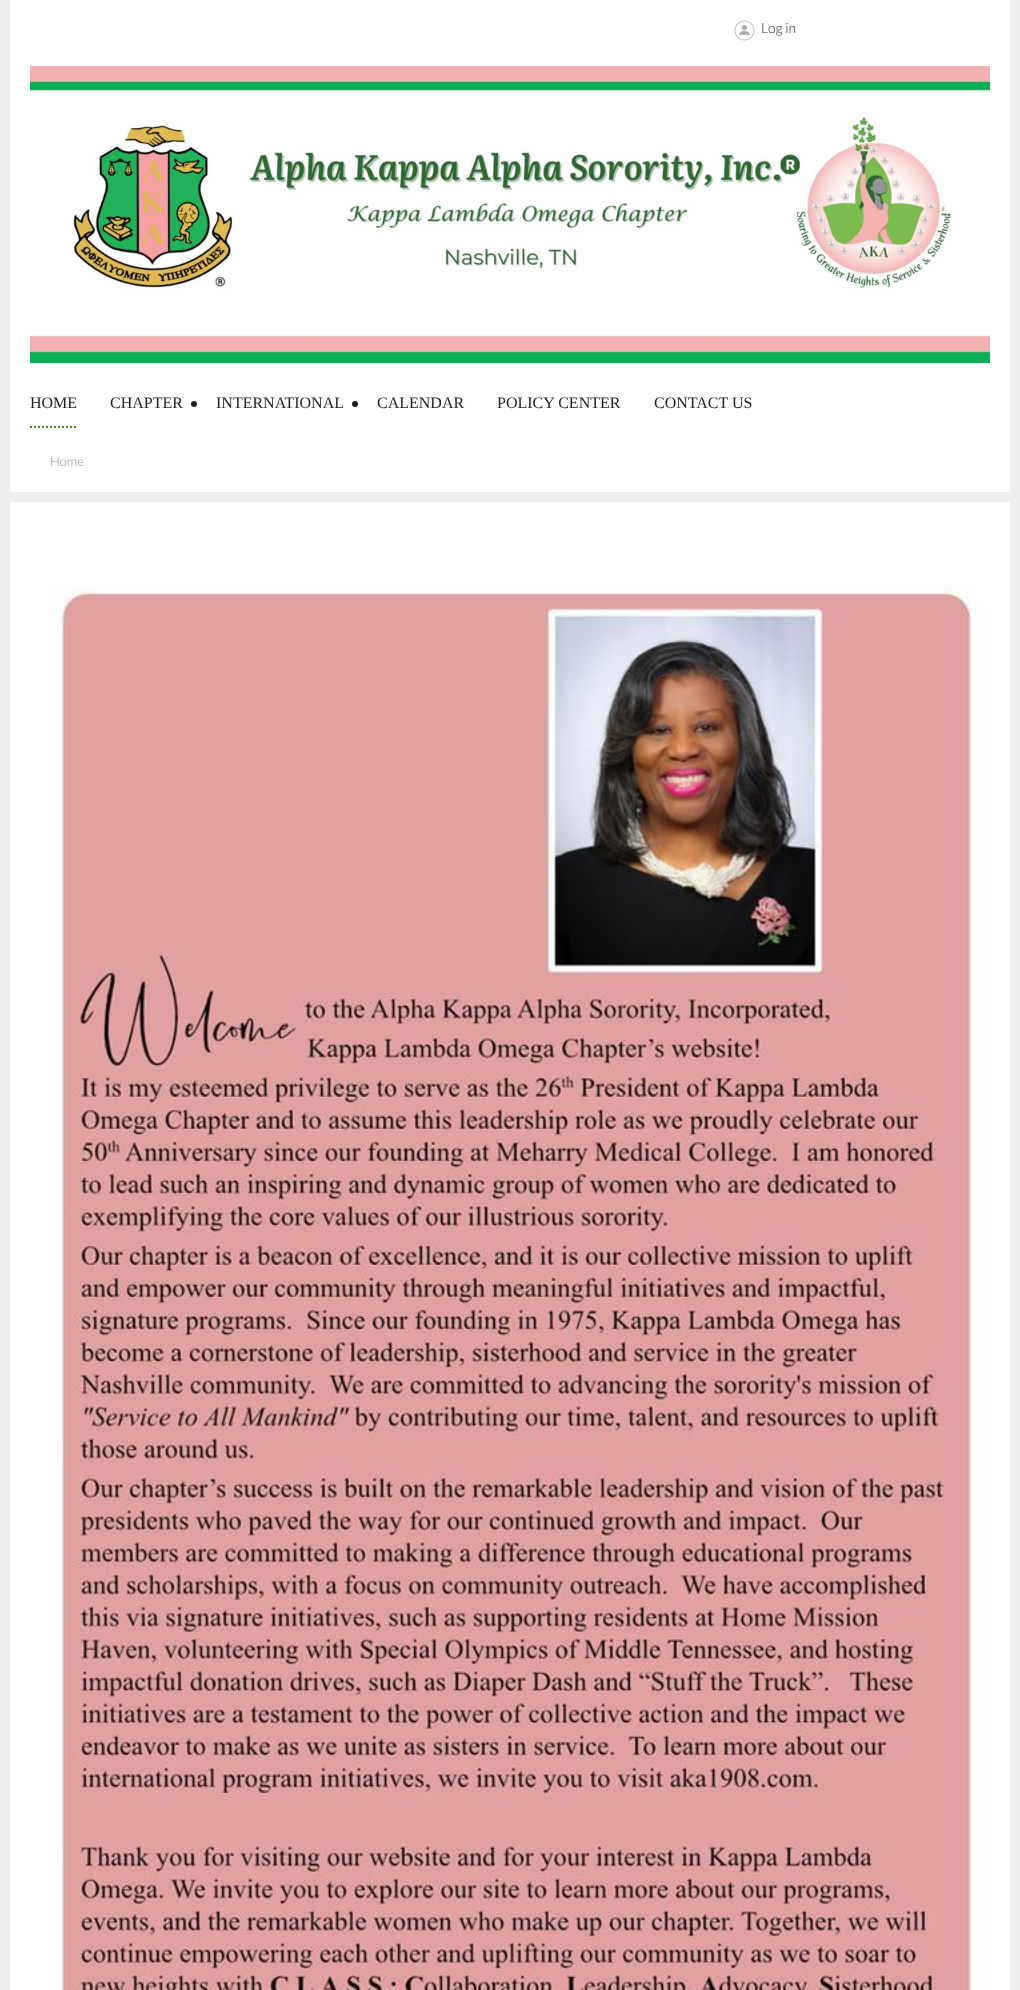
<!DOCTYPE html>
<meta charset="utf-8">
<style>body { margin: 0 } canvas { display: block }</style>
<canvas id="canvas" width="1020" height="1990"></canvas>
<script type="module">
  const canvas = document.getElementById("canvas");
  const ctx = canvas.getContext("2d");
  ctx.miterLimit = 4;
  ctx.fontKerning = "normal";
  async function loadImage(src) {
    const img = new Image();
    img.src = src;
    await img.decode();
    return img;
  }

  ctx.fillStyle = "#f0eeee";
  ctx.fillRect(0, 0, 1020, 1990);
  ctx.fillStyle = "#ffffff";
  ctx.fillRect(10, 0, 1000, 492);
  ctx.drawImage(await loadImage("img1.png"), 734, 20, 21, 21);
  ctx.font = "300 14px Lato";
  ctx.fillStyle = "#221e1f";
  ctx.fillText("Log in", 761, 33);
  ctx.drawImage(await loadImage("img2.png"), 30, 66, 960, 297);
  ctx.beginPath();
  ctx.moveTo(30, 427);
  ctx.lineTo(77, 427);
  ctx.strokeStyle = "#488616";
  ctx.lineWidth = 2;
  ctx.setLineDash([2, 2]);
  ctx.stroke();
  ctx.font = "16px Liberation Serif";
  ctx.fillText("HOME", 30, 408);
  ctx.fillText("CHAPTER", 110, 408);
  ctx.beginPath();
  ctx.arc(194, 404, 3, 0, Math.PI * 2);
  ctx.fill();
  ctx.fillText("INTERNATIONAL", 216, 408);
  ctx.beginPath();
  ctx.arc(355, 404, 3, 0, Math.PI * 2);
  ctx.fill();
  ctx.fillText("CALENDAR", 377, 408);
  ctx.fillText("POLICY CENTER", 497, 408);
  ctx.fillText("CONTACT US", 654, 408);
  ctx.font = "300 13px Lato";
  ctx.fillStyle = "#949493";
  ctx.fillText("Home", 50, 466);
  ctx.fillStyle = "#ffffff";
  ctx.fillRect(10, 502, 1000, 1488);
  ctx.drawImage(await loadImage("img3.png"), 52, 586, 938, 1404);
</script>
